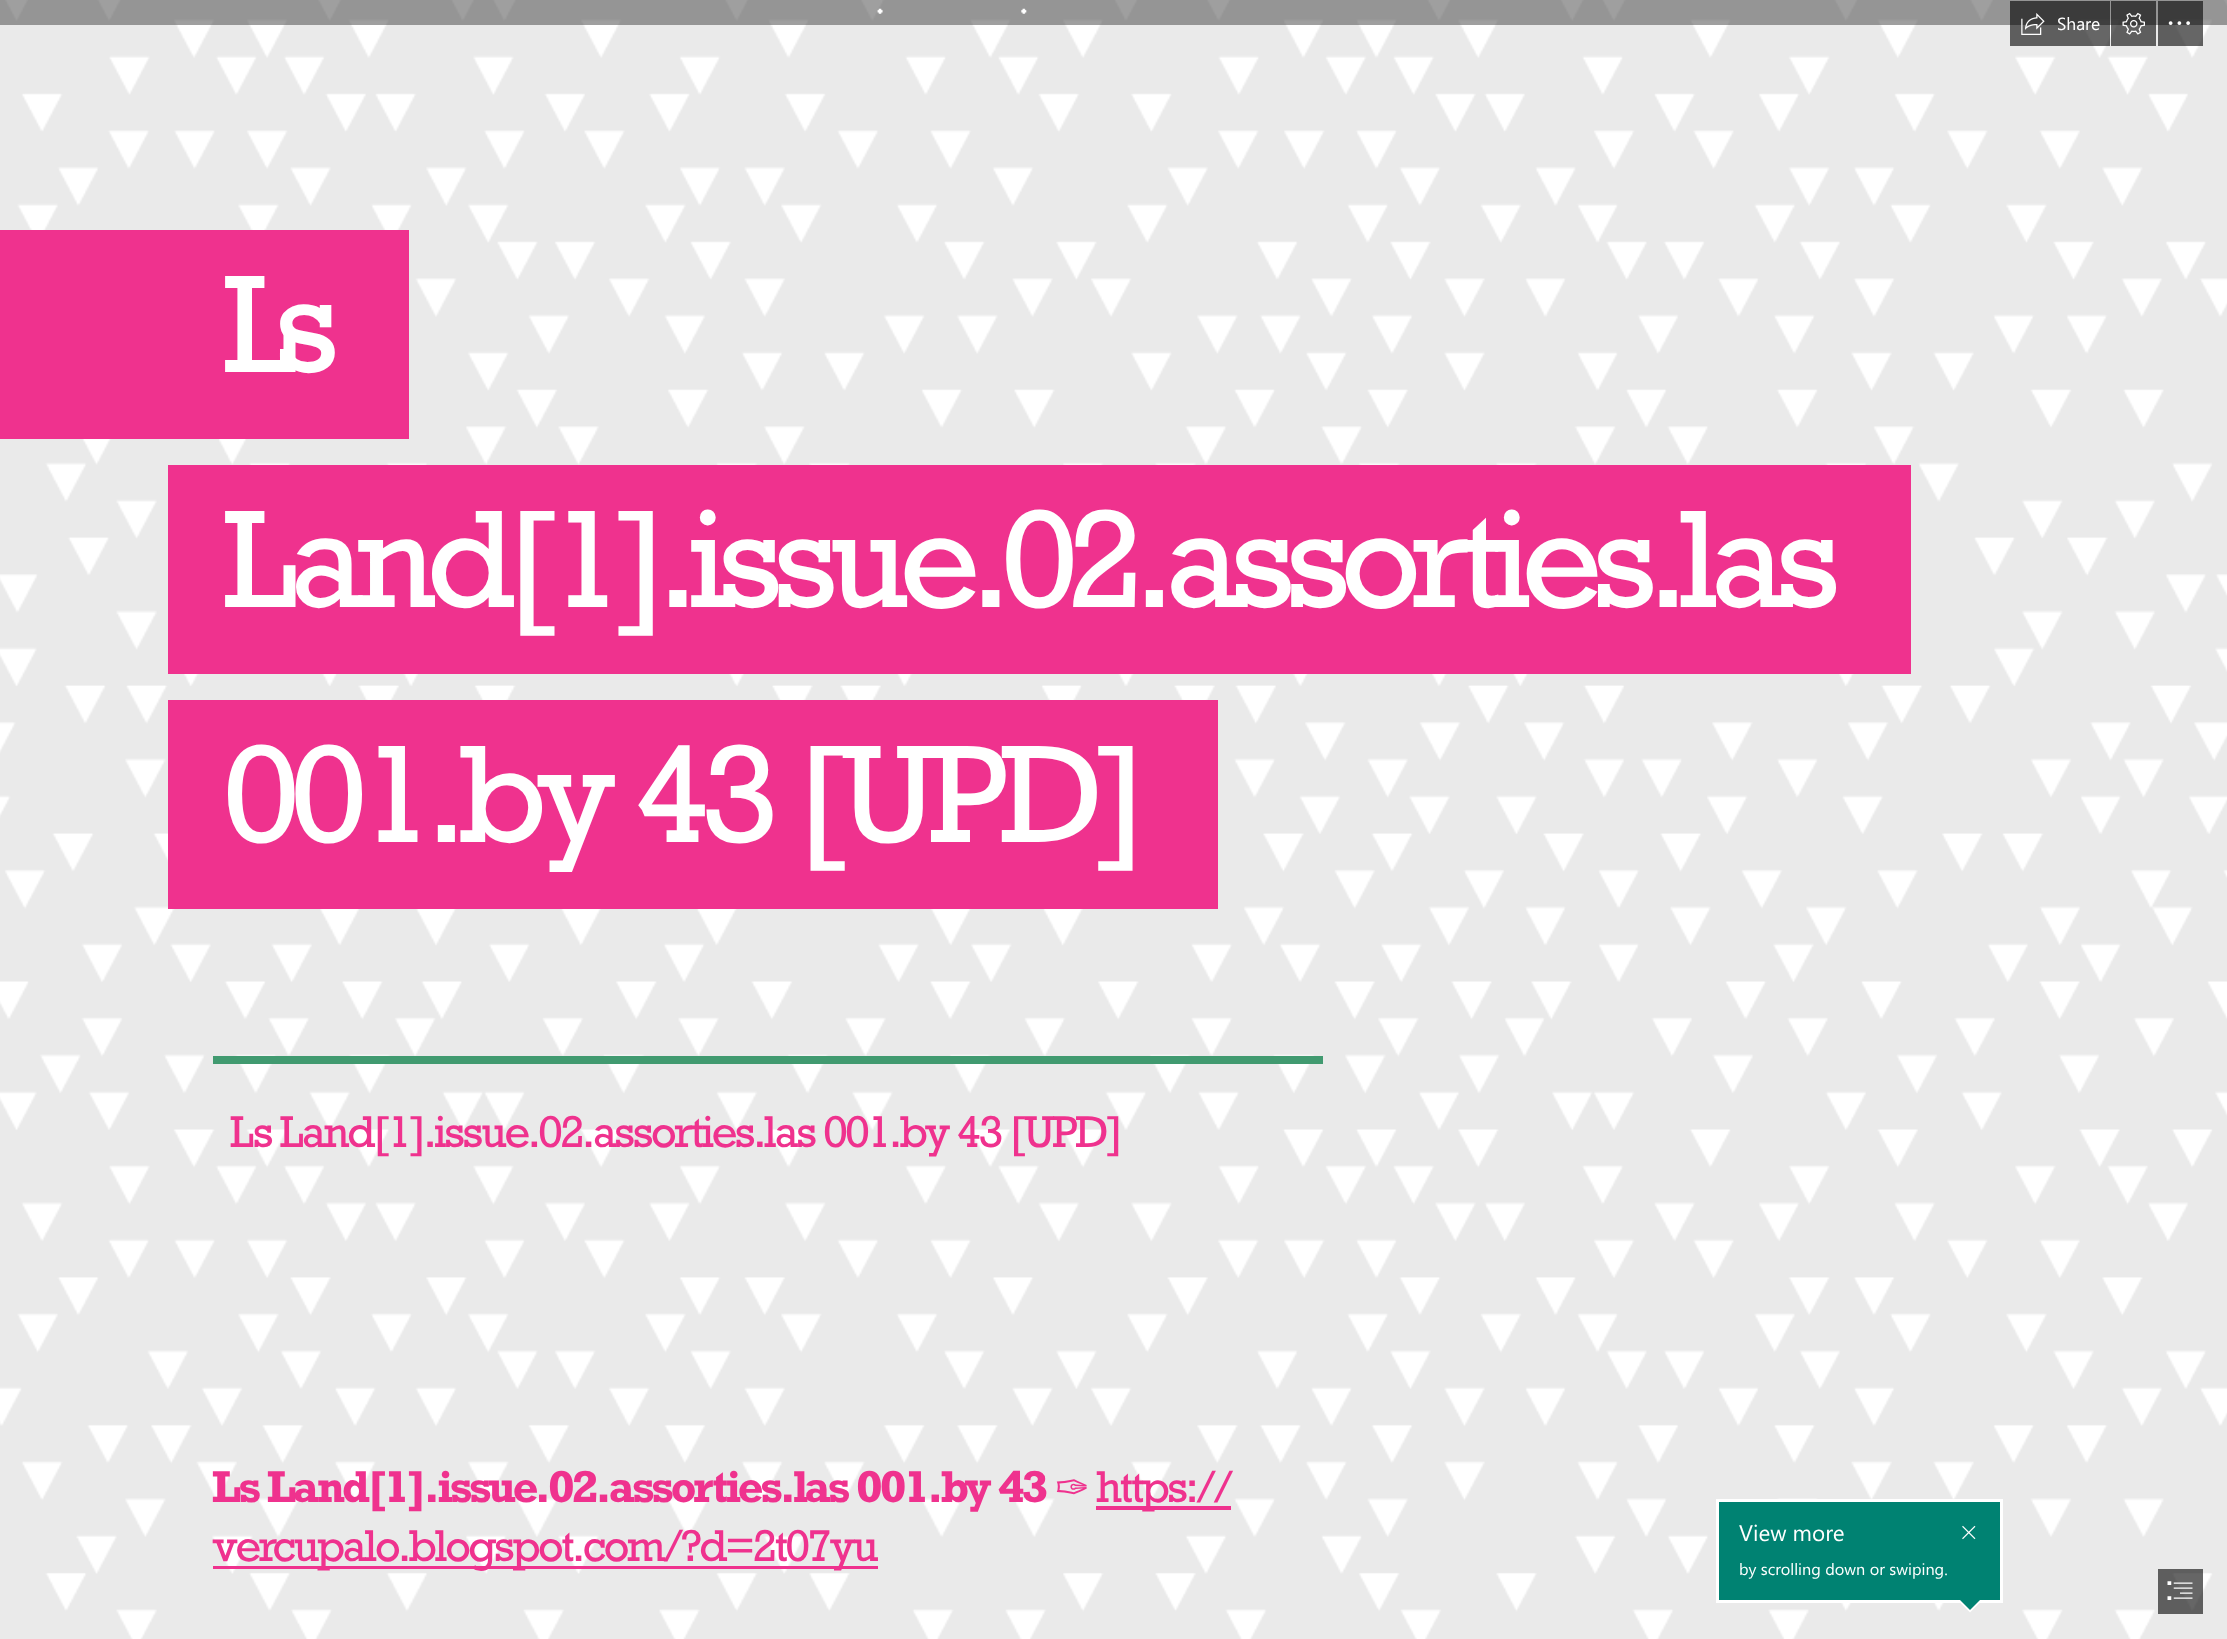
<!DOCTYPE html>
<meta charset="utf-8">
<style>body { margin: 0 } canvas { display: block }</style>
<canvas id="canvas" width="2227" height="1639"></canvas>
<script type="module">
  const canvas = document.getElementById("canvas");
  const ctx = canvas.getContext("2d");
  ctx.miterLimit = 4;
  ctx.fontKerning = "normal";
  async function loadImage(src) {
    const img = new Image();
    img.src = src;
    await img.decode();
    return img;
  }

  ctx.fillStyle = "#eaeaea";
  ctx.fillRect(0, 0, 2227, 1639);
  ctx.drawImage(await loadImage("img5.png"), 0, 0, 2227, 1639);
  ctx.fillStyle = "rgba(64, 64, 64, 0.5)";
  ctx.fillRect(0, 0, 2227, 25);
  ctx.fillStyle = "rgba(0, 0, 0, 0.6)";
  ctx.fillRect(2010, 1, 100, 45);
  ctx.drawImage(await loadImage("img1.png"), 2021, 13, 24, 22);
  ctx.font = "17.5px Segoe UI";
  ctx.fillStyle = "#ffffff";
  ctx.fillText("Share", 2057, 30);
  ctx.fillStyle = "rgba(0, 0, 0, 0.6)";
  ctx.fillRect(2111, 1, 45, 45);
  ctx.drawImage(await loadImage("img2.png"), 2122, 12, 23, 23);
  ctx.fillRect(2158, 1, 45, 45);
  ctx.drawImage(await loadImage("img3.png"), 2168, 21, 22, 4);
  ctx.drawImage(await loadImage("img4.png"), 877, 8, 150, 6);
  ctx.fillStyle = "#ef328e";
  ctx.fillRect(0, 230, 409, 209);
  ctx.letterSpacing = "-28px";
  ctx.font = "130.5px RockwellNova";
  ctx.fillStyle = "#ffffff";
  ctx.fillText("Ls", 223, 372);
  ctx.fillStyle = "#ef328e";
  ctx.fillRect(168, 465, 1743, 209);
  ctx.letterSpacing = "-10.25px";
  ctx.fillStyle = "#ffffff";
  ctx.fillText("Land[1].issue.02.assorties.las", 223, 607);
  ctx.fillStyle = "#ef328e";
  ctx.fillRect(168, 700, 1050, 209);
  ctx.letterSpacing = "-9px";
  ctx.fillStyle = "#ffffff";
  ctx.fillText("001.by 43 [UPD]", 223, 842);
  ctx.fillStyle = "#419a70";
  ctx.fillRect(213, 1056, 1110, 8);
  ctx.letterSpacing = "-2.6px";
  ctx.font = "41.75px RockwellNova";
  ctx.fillStyle = "#ef328e";
  ctx.fillText("Ls Land[1].issue.02.assorties.las 001.by 43 [UPD]", 230, 1147);
  ctx.font = "bold 41.75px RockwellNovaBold";
  ctx.fillText("Ls Land[1].issue.02.assorties.las 001.by 43", 212, 1502);
  ctx.font = "41.75px DejaVu Sans";
  ctx.fillText("✑", 1055, 1502);
  ctx.fillRect(1096, 1506, 135, 4);
  ctx.font = "41.75px RockwellNova";
  ctx.fillText("https://", 1096, 1502);
  ctx.fillRect(213, 1566, 665, 3);
  ctx.fillText("vercupalo.blogspot.com/?d=2t07yu", 212, 1561);
  ctx.fillStyle = "#008272";
  ctx.beginPath();
  ctx.rect(1717.5, 1500.5, 284, 101);
  ctx.fill();
  ctx.strokeStyle = "#ffffff";
  ctx.lineWidth = 3;
  ctx.stroke();
  ctx.letterSpacing = "0px";
  ctx.font = "22.5px Segoe UI";
  ctx.fillStyle = "#ffffff";
  ctx.fillText("View more", 1739, 1541);
  ctx.font = "16.25px Segoe UI";
  ctx.fillText("by scrolling down or swiping.", 1739, 1575);
  ctx.drawImage(await loadImage("img6.png"), 1962, 1525, 14, 15);
  ctx.beginPath();
  ctx.moveTo(1957.5, 1600);
  ctx.lineTo(1982.5, 1600);
  ctx.lineTo(1970, 1612.5);
  ctx.closePath();
  ctx.fill();
  ctx.fillStyle = "#008272";
  ctx.beginPath();
  ctx.moveTo(1960, 1600);
  ctx.lineTo(1980, 1600);
  ctx.lineTo(1970, 1610);
  ctx.closePath();
  ctx.fill();
  ctx.fillStyle = "rgba(0, 0, 0, 0.6)";
  ctx.fillRect(2158, 1569, 45, 45);
  ctx.drawImage(await loadImage("img7.png"), 2167, 1581, 26, 19);
</script>
